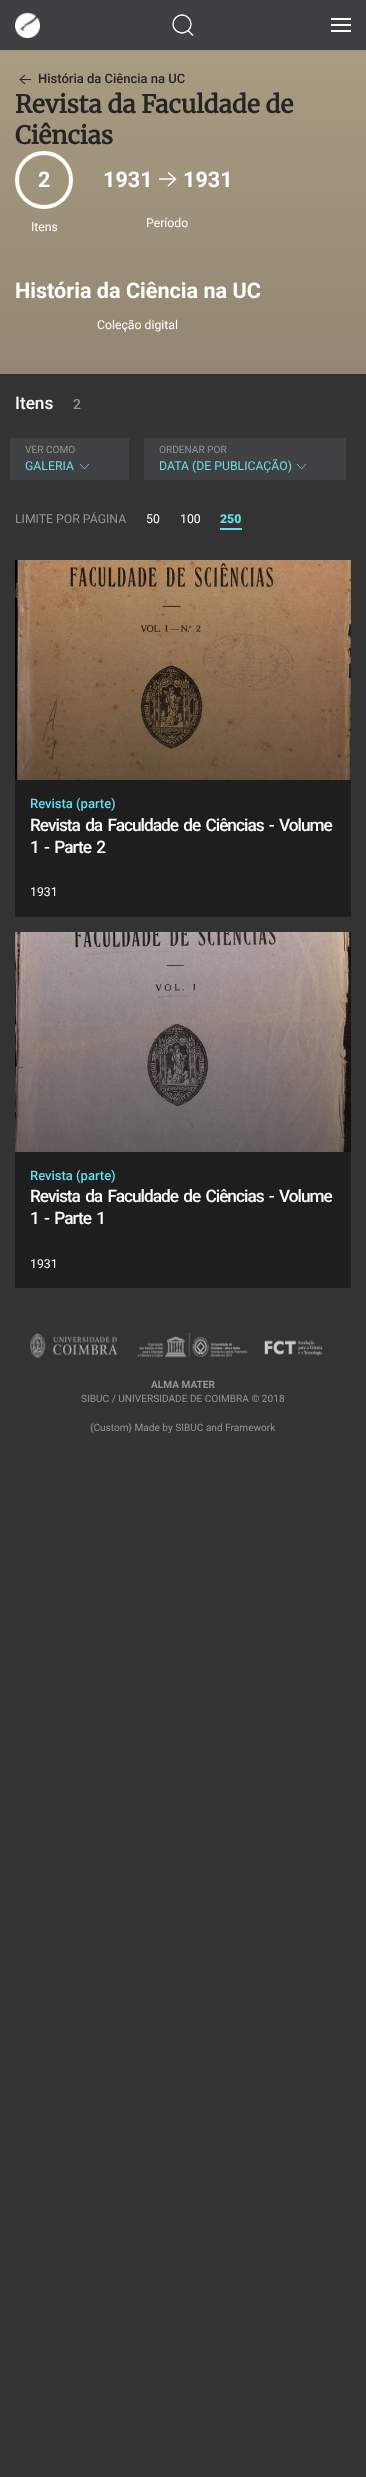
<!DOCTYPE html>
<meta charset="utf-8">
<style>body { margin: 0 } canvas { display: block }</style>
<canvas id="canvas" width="366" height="2477"></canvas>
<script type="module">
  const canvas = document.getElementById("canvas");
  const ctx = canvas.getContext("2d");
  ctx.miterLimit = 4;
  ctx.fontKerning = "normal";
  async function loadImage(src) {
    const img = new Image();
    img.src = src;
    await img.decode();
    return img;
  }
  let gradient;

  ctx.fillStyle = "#333333";
  ctx.fillRect(0, 0, 366, 2477);
  ctx.fillStyle = "#3f4041";
  ctx.fillRect(0, 0, 366, 50);
  ctx.drawImage(await loadImage("img1.png"), 15, 12, 25, 26);
  ctx.beginPath();
  ctx.arc(182, 24, 9, 0, Math.PI * 2);
  ctx.strokeStyle = "#ffffff";
  ctx.lineWidth = 1.4;
  ctx.stroke();
  ctx.beginPath();
  ctx.moveTo(188, 30.5);
  ctx.lineTo(193, 35.5);
  ctx.closePath();
  ctx.stroke();
  ctx.fillStyle = "#ffffff";
  ctx.fillRect(331, 18, 20, 2);
  ctx.fillRect(331, 24, 20, 2);
  ctx.fillRect(331, 30, 20, 2);
  gradient = ctx.createLinearGradient(183, 50, 183, 374);
  gradient.addColorStop(0, "#a89c82");
  gradient.addColorStop(1, "#918772");
  ctx.fillStyle = gradient;
  ctx.fillRect(0, 50, 366, 324);
  ctx.drawImage(await loadImage("img2.png"), 19, 74, 12, 11);
  ctx.font = "500 13px Roboto";
  ctx.fillStyle = "#252525";
  ctx.fillText("História da Ciência na UC", 38, 83);
  ctx.font = "bold 24.5px Merriweather";
  ctx.fillText("Revista da Faculdade de", 15, 113);
  ctx.fillText("Ciências", 15, 144);
  ctx.beginPath();
  ctx.arc(44, 180, 27, 0, Math.PI * 2);
  ctx.lineWidth = 4;
  ctx.stroke();
  ctx.font = "bold 21.6px Roboto";
  ctx.fillStyle = "#ffffff";
  ctx.fillText("2", 38, 187);
  ctx.font = "12.25px Roboto";
  ctx.fillText("Itens", 31, 231);
  ctx.font = "bold 21.6px Roboto";
  ctx.fillText("1931", 103, 187);
  ctx.beginPath();
  ctx.moveTo(168, 172.5);
  ctx.lineTo(175.5, 179);
  ctx.lineTo(168, 186);
  ctx.lineWidth = 1.5;
  ctx.stroke();
  ctx.fillStyle = "rgba(255, 255, 255, 0.75)";
  ctx.fillRect(159, 178, 17, 2);
  ctx.fillStyle = "#ffffff";
  ctx.fillText("1931", 183, 187);
  ctx.font = "12.25px Roboto";
  ctx.fillText("Período", 146, 227);
  ctx.font = "bold 21.6px Roboto";
  ctx.fillText("História da Ciência na UC", 15, 298);
  ctx.font = "12.25px Roboto";
  ctx.fillText("Coleção digital", 97, 329);
  ctx.font = "500 17.25px Roboto";
  ctx.fillText("Itens", 15, 409);
  ctx.font = "500 14px Roboto";
  ctx.fillStyle = "#959595";
  ctx.fillText("2", 73, 409);
  ctx.fillStyle = "#404142";
  ctx.fillRect(10, 438, 119, 42);
  ctx.font = "10.1px Roboto";
  ctx.fillStyle = "#959595";
  ctx.fillText("VER COMO", 25, 453);
  ctx.font = "12.25px Roboto";
  ctx.fillStyle = "#6bdde8";
  ctx.fillText("GALERIA", 25, 470);
  ctx.beginPath();
  ctx.moveTo(89, 464);
  ctx.lineTo(84.5, 469);
  ctx.lineTo(80, 464);
  ctx.strokeStyle = "#6bdde8";
  ctx.lineWidth = 0.8;
  ctx.stroke();
  ctx.fillStyle = "#404142";
  ctx.fillRect(144, 438, 202, 42);
  ctx.font = "10.1px Roboto";
  ctx.fillStyle = "#959595";
  ctx.fillText("ORDENAR POR", 159, 453);
  ctx.font = "12.25px Roboto";
  ctx.fillStyle = "#6bdde8";
  ctx.fillText("DATA (DE PUBLICAÇÃO)", 159, 470);
  ctx.beginPath();
  ctx.moveTo(306, 464);
  ctx.lineTo(301.5, 469);
  ctx.lineTo(297, 464);
  ctx.stroke();
  ctx.fillStyle = "#959595";
  ctx.fillText("LIMITE POR PÁGINA", 15, 523);
  ctx.fillStyle = "#ffffff";
  ctx.fillText("50", 146, 523);
  ctx.fillText("100", 180, 523);
  ctx.fillStyle = "#6bdde8";
  ctx.fillRect(220, 528, 22, 2);
  ctx.font = "900 12.25px Roboto";
  ctx.fillText("250", 220, 523);
  ctx.fillStyle = "#1e1e1e";
  ctx.fillRect(15, 780, 336, 137);
  ctx.drawImage(await loadImage("img3.png"), 15, 560, 336, 220);
  ctx.font = "500 13px Roboto";
  ctx.fillStyle = "#6bdde8";
  ctx.fillText("Revista (parte)", 30, 808);
  ctx.letterSpacing = "-1px";
  ctx.wordSpacing = "2px";
  ctx.font = "500 17.25px Roboto";
  ctx.fillStyle = "#ffffff";
  ctx.fillText("Revista da Faculdade de Ciências - Volume", 30, 831);
  ctx.fillText("1 - Parte 2", 30, 853);
  ctx.letterSpacing = "0px";
  ctx.wordSpacing = "0px";
  ctx.font = "12.25px Roboto";
  ctx.fillText("1931", 30, 896);
  ctx.fillStyle = "#1e1e1e";
  ctx.fillRect(15, 1152, 336, 136);
  ctx.drawImage(await loadImage("img4.png"), 15, 932, 336, 220);
  ctx.font = "500 13px Roboto";
  ctx.fillStyle = "#6bdde8";
  ctx.fillText("Revista (parte)", 30, 1180);
  ctx.letterSpacing = "-1px";
  ctx.wordSpacing = "2px";
  ctx.font = "500 17.25px Roboto";
  ctx.fillStyle = "#ffffff";
  ctx.fillText("Revista da Faculdade de Ciências - Volume", 30, 1202);
  ctx.fillText("1 - Parte 1", 30, 1224);
  ctx.letterSpacing = "0px";
  ctx.wordSpacing = "0px";
  ctx.font = "12.25px Roboto";
  ctx.fillText("1931", 30, 1268);
  ctx.drawImage(await loadImage("img5.png"), 30, 1333, 293, 26);
  ctx.font = "bold 10.1px Roboto";
  ctx.fillStyle = "#959595";
  ctx.fillText("ALMA MATER", 151, 1388);
  ctx.font = "10.1px Roboto";
  ctx.fillText("SIBUC / UNIVERSIDADE DE COIMBRA © 2018", 81, 1402);
  ctx.fillText("{Custom} Made by SIBUC and Framework", 90, 1431);
</script>
